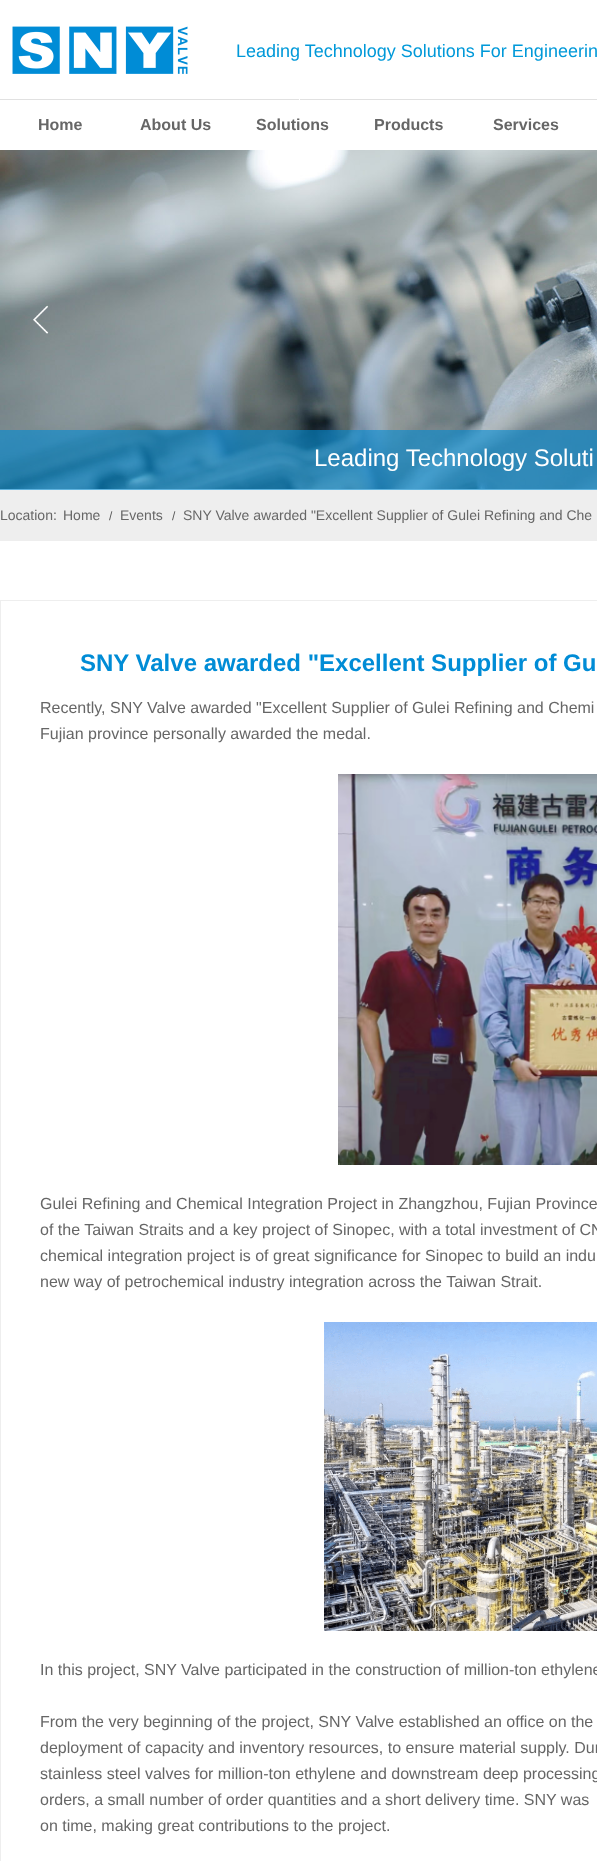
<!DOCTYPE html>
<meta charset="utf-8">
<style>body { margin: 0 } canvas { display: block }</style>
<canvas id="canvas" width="597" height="1861"></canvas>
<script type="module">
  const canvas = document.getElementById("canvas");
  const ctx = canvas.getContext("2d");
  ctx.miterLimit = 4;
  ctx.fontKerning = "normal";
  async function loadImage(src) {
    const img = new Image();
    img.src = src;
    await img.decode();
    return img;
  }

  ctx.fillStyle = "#ffffff";
  ctx.fillRect(0, 0, 597, 1861);
  ctx.drawImage(await loadImage("img1.png"), 12, 26, 176, 48);
  ctx.font = "18px Liberation Sans";
  ctx.fillStyle = "#0099d9";
  ctx.fillText("Leading Technology Solutions For Engineerin", 236, 57);
  ctx.drawImage(await loadImage("img2.png"), 0, 99, 597, 1);
  ctx.font = "bold 16px Liberation Sans";
  ctx.fillStyle = "#666666";
  ctx.fillText("Home", 38, 130);
  ctx.fillText("About Us", 140, 130);
  ctx.fillText("Solutions", 256, 130);
  ctx.fillText("Products", 374, 130);
  ctx.fillText("Services", 493, 130);
  ctx.drawImage(await loadImage("img3.png"), 0, 150, 597, 339);
  ctx.drawImage(await loadImage("img4.png"), 33, 305, 16, 29);
  ctx.fillStyle = "#eeeeee";
  ctx.fillRect(0, 489, 597, 52);
  ctx.fillStyle = "rgba(0, 140, 214, 0.6)";
  ctx.fillRect(0, 430, 597, 60);
  ctx.font = "24px Liberation Sans";
  ctx.fillStyle = "#ffffff";
  ctx.fillText("Leading Technology Soluti", 314, 466);
  ctx.font = "14px Liberation Sans";
  ctx.fillStyle = "#666666";
  ctx.fillText("Location:", 0, 520);
  ctx.fillText("Home", 63, 520);
  ctx.font = "12px Liberation Sans";
  ctx.fillStyle = "#5a5a5a";
  ctx.fillText("/", 109, 520);
  ctx.font = "14px Liberation Sans";
  ctx.fillStyle = "#666666";
  ctx.fillText("Events", 120, 520);
  ctx.font = "12px Liberation Sans";
  ctx.fillStyle = "#5a5a5a";
  ctx.fillText("/", 172, 520);
  ctx.font = "14px Liberation Sans";
  ctx.fillStyle = "#666666";
  ctx.fillText("SNY Valve awarded \"Excellent Supplier of Gulei Refining and Che", 183, 520);
  ctx.strokeStyle = "#eeeeee";
  ctx.strokeRect(0.5, 600.5, 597, 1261);
  ctx.font = "bold 24px Liberation Sans";
  ctx.fillStyle = "#008cd6";
  ctx.fillText("SNY Valve awarded \"Excellent Supplier of Gu", 80, 671);
  ctx.font = "16px Liberation Sans";
  ctx.fillStyle = "#666666";
  ctx.fillText("Recently, SNY Valve awarded \"Excellent Supplier of Gulei Refining and Chemi", 40, 713);
  ctx.fillText("Fujian province personally awarded the medal.", 40, 739);
  ctx.drawImage(await loadImage("img5.png"), 338, 774, 259, 391);
  ctx.fillText("Gulei Refining and Chemical Integration Project in Zhangzhou, Fujian Province", 40, 1209);
  ctx.fillText("of the Taiwan Straits and a key project of Sinopec, with a total investment of CN", 40, 1235);
  ctx.fillText("chemical integration project is of great significance for Sinopec to build an indu", 40, 1261);
  ctx.fillText("new way of petrochemical industry integration across the Taiwan Strait.", 40, 1287);
  ctx.drawImage(await loadImage("img6.png"), 324, 1322, 273, 309);
  ctx.fillText("In this project, SNY Valve participated in the construction of million-ton ethylene", 40, 1675);
  ctx.fillText("From the very beginning of the project, SNY Valve established an office on the", 40, 1727);
  ctx.fillText("deployment of capacity and inventory resources, to ensure material supply. Dur", 40, 1753);
  ctx.fillText("stainless steel valves for million-ton ethylene and downstream deep processing", 40, 1779);
  ctx.fillText("orders, a small number of order quantities and a short delivery time. SNY was", 40, 1805);
  ctx.fillText("on time, making great contributions to the project.", 40, 1831);
</script>
